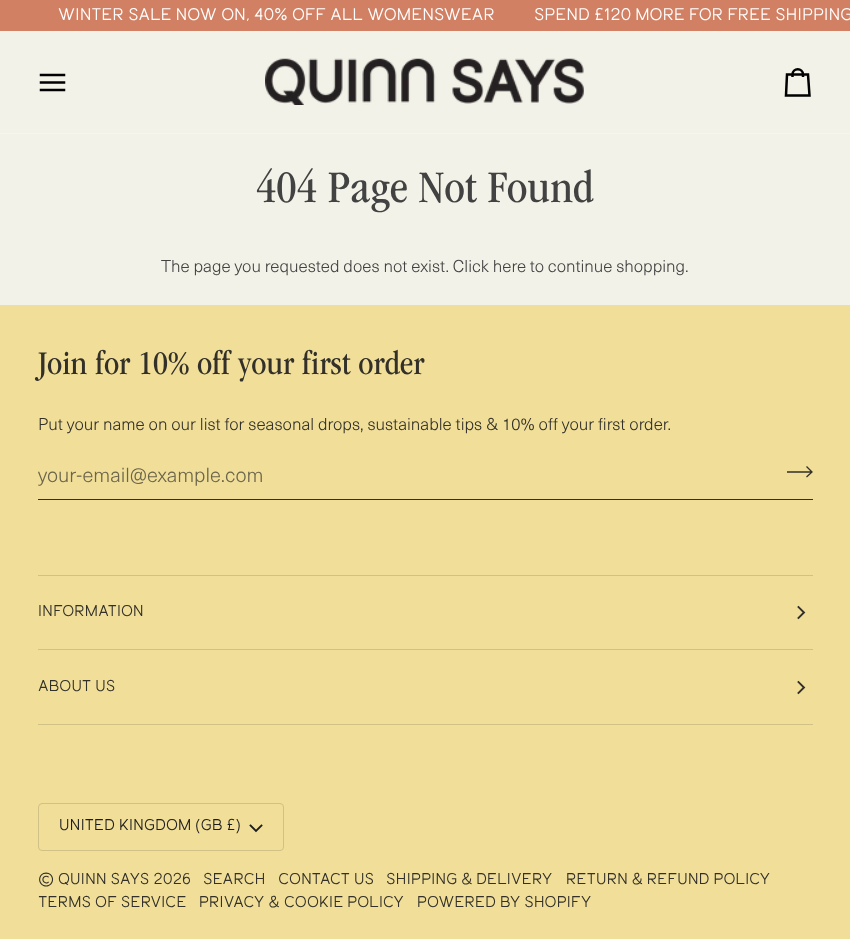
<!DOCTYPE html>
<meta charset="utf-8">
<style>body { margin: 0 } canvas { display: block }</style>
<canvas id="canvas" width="850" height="939"></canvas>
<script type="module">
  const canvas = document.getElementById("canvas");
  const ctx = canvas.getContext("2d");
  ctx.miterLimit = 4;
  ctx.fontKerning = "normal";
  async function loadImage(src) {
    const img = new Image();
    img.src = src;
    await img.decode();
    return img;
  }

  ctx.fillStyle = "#f2f2e8";
  ctx.fillRect(0, 0, 850, 939);
  ctx.fillStyle = "#d18063";
  ctx.fillRect(0, 0, 850, 31);
  ctx.font = "16.9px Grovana";
  ctx.fillStyle = "#ffffff";
  ctx.fillText("WINTER SALE NOW ON, 40% OFF ALL WOMENSWEAR", 58, 20);
  ctx.fillText("Spend £120 more for free shipping", 534, 20);
  ctx.fillStyle = "#f7f5f4";
  ctx.fillRect(0, 133, 850, 1);
  ctx.beginPath();
  ctx.moveTo(64, 75);
  ctx.lineTo(41, 75);
  ctx.moveTo(64, 82.5);
  ctx.lineTo(41, 82.5);
  ctx.moveTo(64, 90);
  ctx.lineTo(41, 90);
  ctx.strokeStyle = "#000000";
  ctx.lineWidth = 2.5;
  ctx.lineCap = "square";
  ctx.stroke();
  ctx.drawImage(await loadImage("img1.png"), 265, 58, 319, 47);
  ctx.beginPath();
  ctx.moveTo(803, 77);
  ctx.lineTo(803, 74.5);
  ctx.lineTo(808, 74.5);
  ctx.lineTo(809.5, 95.5);
  ctx.lineTo(786, 95.5);
  ctx.lineTo(787, 74.5);
  ctx.lineTo(792.5, 74.5);
  ctx.bezierCurveTo(792.5, 67.5, 803, 67.5, 803, 74.5);
  ctx.lineTo(792.5, 74.5);
  ctx.lineTo(792.5, 77);
  ctx.lineCap = "butt";
  ctx.stroke();
  ctx.font = "46.75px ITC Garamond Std";
  ctx.fillStyle = "#424242";
  ctx.fillText("404 Page Not Found", 256, 202);
  ctx.font = "300 16.9px 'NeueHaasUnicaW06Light'";
  ctx.fillText("The page you requested does not exist. Click here to continue shopping.", 161, 272);
  ctx.fillStyle = "#f0de99";
  ctx.fillRect(0, 305, 850, 634);
  ctx.font = "34.4px ITC Garamond Std";
  ctx.fillStyle = "#323029";
  ctx.fillText("Join for 10% off your first order", 38, 374);
  ctx.font = "300 16.9px 'NeueHaasUnicaW06Light'";
  ctx.fillText("Put your name on our list for seasonal drops, sustainable tips & 10% off your first order.", 38, 430);
  ctx.fillRect(38, 499, 775, 1);
  ctx.save();
  ctx.beginPath();
  ctx.rect(38, 461, 721, 28);
  ctx.clip();
  ctx.font = "300 20px 'NeueHaasUnicaW06Light'";
  ctx.fillStyle = "#6b654b";
  ctx.fillText("your-email@example.com", 38, 482);
  ctx.restore();
  ctx.beginPath();
  ctx.moveTo(806.5, 466.5);
  ctx.lineTo(812, 472);
  ctx.lineTo(806.5, 477);
  ctx.moveTo(787, 472);
  ctx.lineTo(812, 472);
  ctx.strokeStyle = "#323029";
  ctx.lineWidth = 1.3;
  ctx.stroke();
  ctx.fillStyle = "#d0c186";
  ctx.fillRect(38, 575, 775, 1);
  ctx.fillRect(38, 649, 775, 1);
  ctx.font = "15.6px Grovana";
  ctx.fillStyle = "#323029";
  ctx.fillText("Information", 38, 616);
  ctx.beginPath();
  ctx.moveTo(798.5, 618);
  ctx.lineTo(804, 612.5);
  ctx.lineTo(798.5, 607);
  ctx.lineWidth = 1.9;
  ctx.lineCap = "square";
  ctx.stroke();
  ctx.fillStyle = "#d0c186";
  ctx.fillRect(38, 724, 775, 1);
  ctx.fillStyle = "#323029";
  ctx.fillText("About Us", 38, 691);
  ctx.beginPath();
  ctx.moveTo(798.5, 693);
  ctx.lineTo(804, 687.5);
  ctx.lineTo(798.5, 682);
  ctx.stroke();
  ctx.beginPath();
  ctx.roundRect(38.5, 803.5, 245, 47, 3.5);
  ctx.strokeStyle = "#d0c186";
  ctx.lineWidth = 1;
  ctx.stroke();
  ctx.fillStyle = "#1d1d1d";
  ctx.fillText("United Kingdom (GB £)", 59, 830);
  ctx.beginPath();
  ctx.moveTo(250.5, 825.5);
  ctx.lineTo(256, 831);
  ctx.lineTo(261.5, 825.5);
  ctx.strokeStyle = "#1d1d1d";
  ctx.lineWidth = 1.8;
  ctx.stroke();
  ctx.fillStyle = "#323029";
  ctx.fillText("© Quinn Says", 38, 884);
  ctx.fillText("2026", 153, 884);
  ctx.fillText("Search", 203, 884);
  ctx.fillText("Contact us", 278, 884);
  ctx.fillText("Shipping & Delivery", 386, 884);
  ctx.fillText("Return & Refund Policy", 566, 884);
  ctx.fillText("Terms of Service", 38, 907);
  ctx.fillText("Privacy & Cookie Policy", 199, 907);
  ctx.fillText("Powered by Shopify", 417, 907);
</script>
